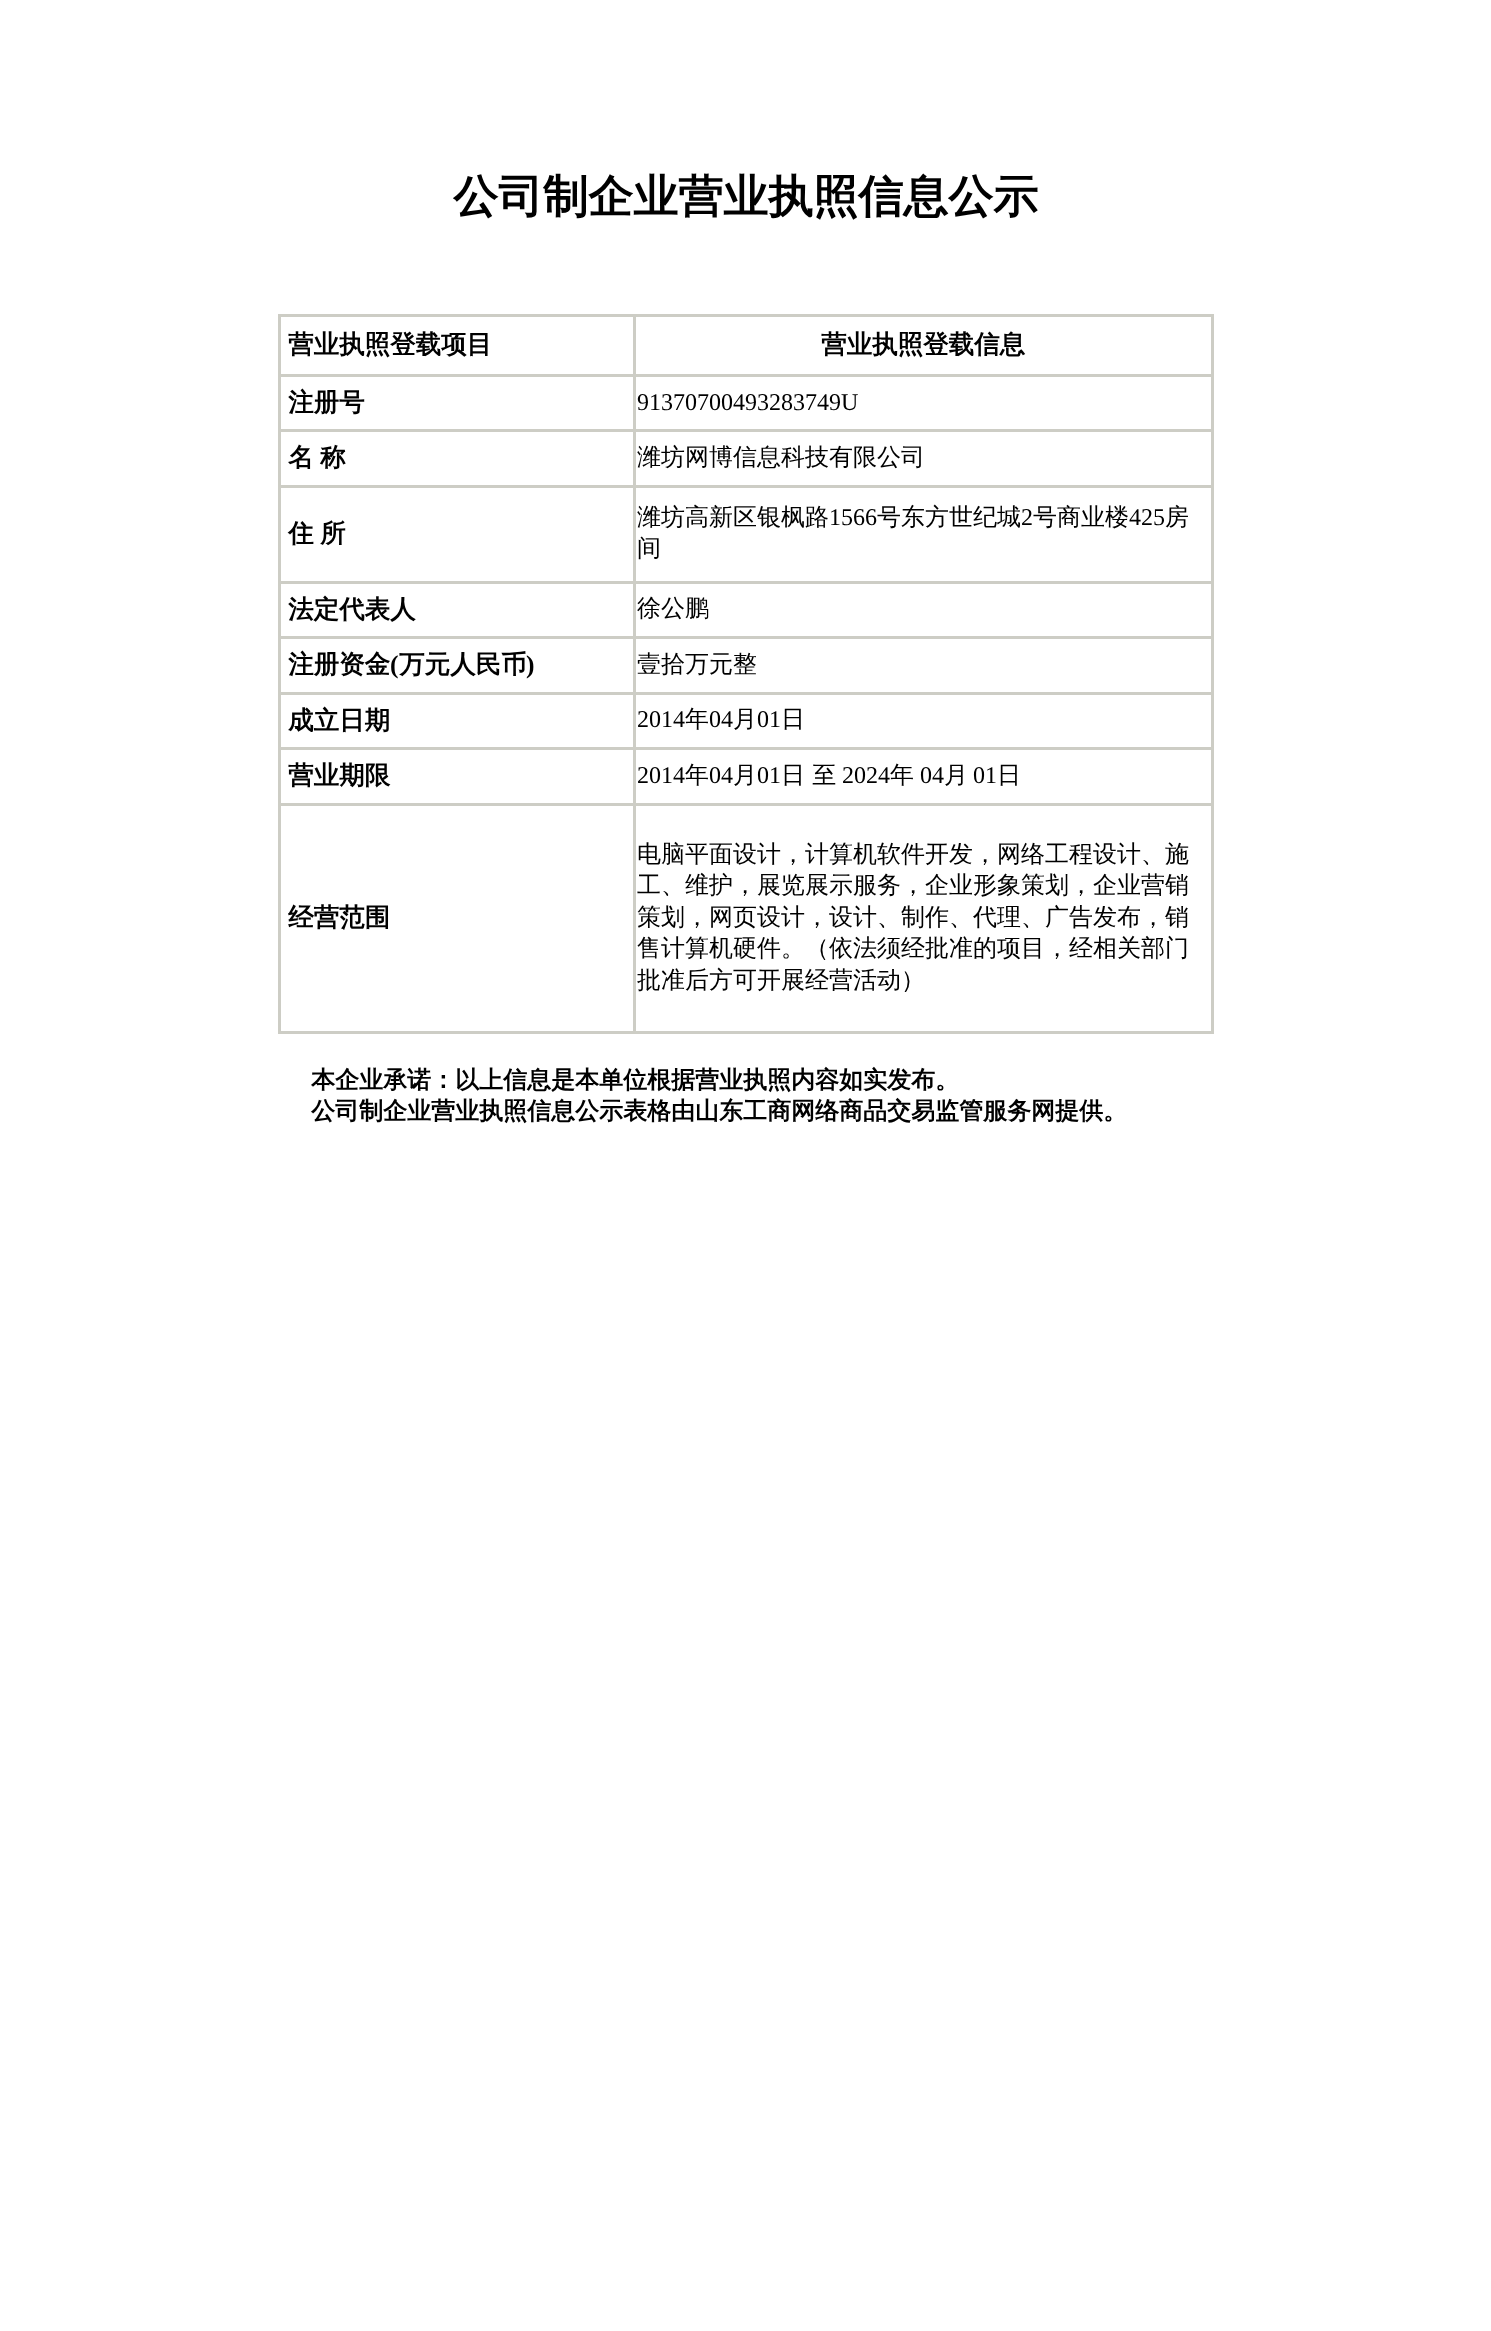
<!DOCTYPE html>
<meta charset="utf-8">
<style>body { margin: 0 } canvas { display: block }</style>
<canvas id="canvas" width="1491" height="2331"></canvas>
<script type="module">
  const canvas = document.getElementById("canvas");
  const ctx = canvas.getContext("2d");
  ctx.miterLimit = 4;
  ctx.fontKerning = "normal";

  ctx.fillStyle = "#ffffff";
  ctx.fillRect(0, 0, 1491, 2331);
  ctx.font = "bold 45px WenQuanYi Zen Hei";
  ctx.fillStyle = "#000000";
  ctx.fillText("公司制企业营业执照信息公示", 453, 212);
  ctx.fillStyle = "#cdcdc5";
  ctx.fillRect(278, 314, 936, 720);
  ctx.fillStyle = "#ffffff";
  ctx.fillRect(281, 317, 352, 57);
  ctx.font = "bold 25.5px WenQuanYi Zen Hei";
  ctx.fillStyle = "#000000";
  ctx.fillText("营业执照登载项目", 288, 353);
  ctx.fillStyle = "#ffffff";
  ctx.fillRect(636, 317, 575, 57);
  ctx.fillStyle = "#000000";
  ctx.fillText("营业执照登载信息", 821, 353);
  ctx.fillStyle = "#ffffff";
  ctx.fillRect(281, 377, 352, 52);
  ctx.fillStyle = "#000000";
  ctx.fillText("注册号", 288, 411);
  ctx.fillStyle = "#ffffff";
  ctx.fillRect(636, 377, 575, 52);
  ctx.font = "24px Liberation Serif";
  ctx.fillStyle = "#000000";
  ctx.fillText("91370700493283749U", 637, 410);
  ctx.fillStyle = "#ffffff";
  ctx.fillRect(281, 432, 352, 53);
  ctx.font = "bold 25.5px WenQuanYi Zen Hei";
  ctx.fillStyle = "#000000";
  ctx.fillText("名", 288, 466);
  ctx.fillText("称", 320, 466);
  ctx.fillStyle = "#ffffff";
  ctx.fillRect(636, 432, 575, 53);
  ctx.font = "500 24px WenQuanYi Zen Hei";
  ctx.fillStyle = "#000000";
  ctx.fillText("潍坊网博信息科技有限公司", 637, 465);
  ctx.fillStyle = "#ffffff";
  ctx.fillRect(281, 488, 352, 93);
  ctx.font = "bold 25.5px WenQuanYi Zen Hei";
  ctx.fillStyle = "#000000";
  ctx.fillText("住", 288, 542);
  ctx.fillText("所", 320, 542);
  ctx.fillStyle = "#ffffff";
  ctx.fillRect(636, 488, 575, 93);
  ctx.font = "500 24px WenQuanYi Zen Hei";
  ctx.fillStyle = "#000000";
  ctx.fillText("潍坊高新区银枫路", 637, 525);
  ctx.font = "24px Liberation Serif";
  ctx.fillText("1566", 829, 525);
  ctx.font = "500 24px WenQuanYi Zen Hei";
  ctx.fillText("号东方世纪城", 877, 525);
  ctx.font = "24px Liberation Serif";
  ctx.fillText("2", 1021, 525);
  ctx.font = "500 24px WenQuanYi Zen Hei";
  ctx.fillText("号商业楼", 1033, 525);
  ctx.font = "24px Liberation Serif";
  ctx.fillText("425", 1129, 525);
  ctx.font = "500 24px WenQuanYi Zen Hei";
  ctx.fillText("房", 1165, 525);
  ctx.fillText("间", 637, 556);
  ctx.fillStyle = "#ffffff";
  ctx.fillRect(281, 584, 352, 52);
  ctx.font = "bold 25.5px WenQuanYi Zen Hei";
  ctx.fillStyle = "#000000";
  ctx.fillText("法定代表人", 288, 618);
  ctx.fillStyle = "#ffffff";
  ctx.fillRect(636, 584, 575, 52);
  ctx.font = "500 24px WenQuanYi Zen Hei";
  ctx.fillStyle = "#000000";
  ctx.fillText("徐公鹏", 637, 616);
  ctx.fillStyle = "#ffffff";
  ctx.fillRect(281, 639, 352, 53);
  ctx.font = "bold 25.5px WenQuanYi Zen Hei";
  ctx.fillStyle = "#000000";
  ctx.fillText("注册资金", 288, 673);
  ctx.font = "bold 25.5px Liberation Serif";
  ctx.fillText("(", 390, 673);
  ctx.font = "bold 25.5px WenQuanYi Zen Hei";
  ctx.fillText("万元人民币", 399, 673);
  ctx.font = "bold 25.5px Liberation Serif";
  ctx.fillText(")", 526, 673);
  ctx.fillStyle = "#ffffff";
  ctx.fillRect(636, 639, 575, 53);
  ctx.font = "500 24px WenQuanYi Zen Hei";
  ctx.fillStyle = "#000000";
  ctx.fillText("壹拾万元整", 637, 672);
  ctx.fillStyle = "#ffffff";
  ctx.fillRect(281, 695, 352, 52);
  ctx.font = "bold 25.5px WenQuanYi Zen Hei";
  ctx.fillStyle = "#000000";
  ctx.fillText("成立日期", 288, 729);
  ctx.fillStyle = "#ffffff";
  ctx.fillRect(636, 695, 575, 52);
  ctx.font = "24px Liberation Serif";
  ctx.fillStyle = "#000000";
  ctx.fillText("2014", 637, 727);
  ctx.font = "500 24px WenQuanYi Zen Hei";
  ctx.fillText("年", 685, 727);
  ctx.font = "24px Liberation Serif";
  ctx.fillText("04", 709, 727);
  ctx.font = "500 24px WenQuanYi Zen Hei";
  ctx.fillText("月", 733, 727);
  ctx.font = "24px Liberation Serif";
  ctx.fillText("01", 757, 727);
  ctx.font = "500 24px WenQuanYi Zen Hei";
  ctx.fillText("日", 781, 727);
  ctx.fillStyle = "#ffffff";
  ctx.fillRect(281, 750, 352, 53);
  ctx.font = "bold 25.5px WenQuanYi Zen Hei";
  ctx.fillStyle = "#000000";
  ctx.fillText("营业期限", 288, 784);
  ctx.fillStyle = "#ffffff";
  ctx.fillRect(636, 750, 575, 53);
  ctx.font = "24px Liberation Serif";
  ctx.fillStyle = "#000000";
  ctx.fillText("2014", 637, 783);
  ctx.font = "500 24px WenQuanYi Zen Hei";
  ctx.fillText("年", 685, 783);
  ctx.font = "24px Liberation Serif";
  ctx.fillText("04", 709, 783);
  ctx.font = "500 24px WenQuanYi Zen Hei";
  ctx.fillText("月", 733, 783);
  ctx.font = "24px Liberation Serif";
  ctx.fillText("01", 757, 783);
  ctx.font = "500 24px WenQuanYi Zen Hei";
  ctx.fillText("日 至", 781, 783);
  ctx.font = "24px Liberation Serif";
  ctx.fillText("2024", 842, 783);
  ctx.font = "500 24px WenQuanYi Zen Hei";
  ctx.fillText("年", 890, 783);
  ctx.font = "24px Liberation Serif";
  ctx.fillText("04", 920, 783);
  ctx.font = "500 24px WenQuanYi Zen Hei";
  ctx.fillText("月", 944, 783);
  ctx.font = "24px Liberation Serif";
  ctx.fillText("01", 973, 783);
  ctx.font = "500 24px WenQuanYi Zen Hei";
  ctx.fillText("日", 997, 783);
  ctx.fillStyle = "#ffffff";
  ctx.fillRect(281, 806, 352, 225);
  ctx.font = "bold 25.5px WenQuanYi Zen Hei";
  ctx.fillStyle = "#000000";
  ctx.fillText("经营范围", 288, 926);
  ctx.fillStyle = "#ffffff";
  ctx.fillRect(636, 806, 575, 225);
  ctx.font = "500 24px WenQuanYi Zen Hei";
  ctx.fillStyle = "#000000";
  ctx.fillText("电脑平面设计，计算机软件开发，网络工程设计、施", 637, 862);
  ctx.fillText("工、维护，展览展示服务，企业形象策划，企业营销", 637, 893);
  ctx.fillText("策划，网页设计，设计、制作、代理、广告发布，销", 637, 925);
  ctx.fillText("售计算机硬件。（依法须经批准的项目，经相关部门", 637, 956);
  ctx.fillText("批准后方可开展经营活动）", 637, 988);
  ctx.font = "bold 24px WenQuanYi Zen Hei";
  ctx.fillText("本企业承诺：以上信息是本单位根据营业执照内容如实发布。", 311, 1088);
  ctx.fillText("公司制企业营业执照信息公示表格由山东工商网络商品交易监管服务网提供。", 311, 1119);
</script>
